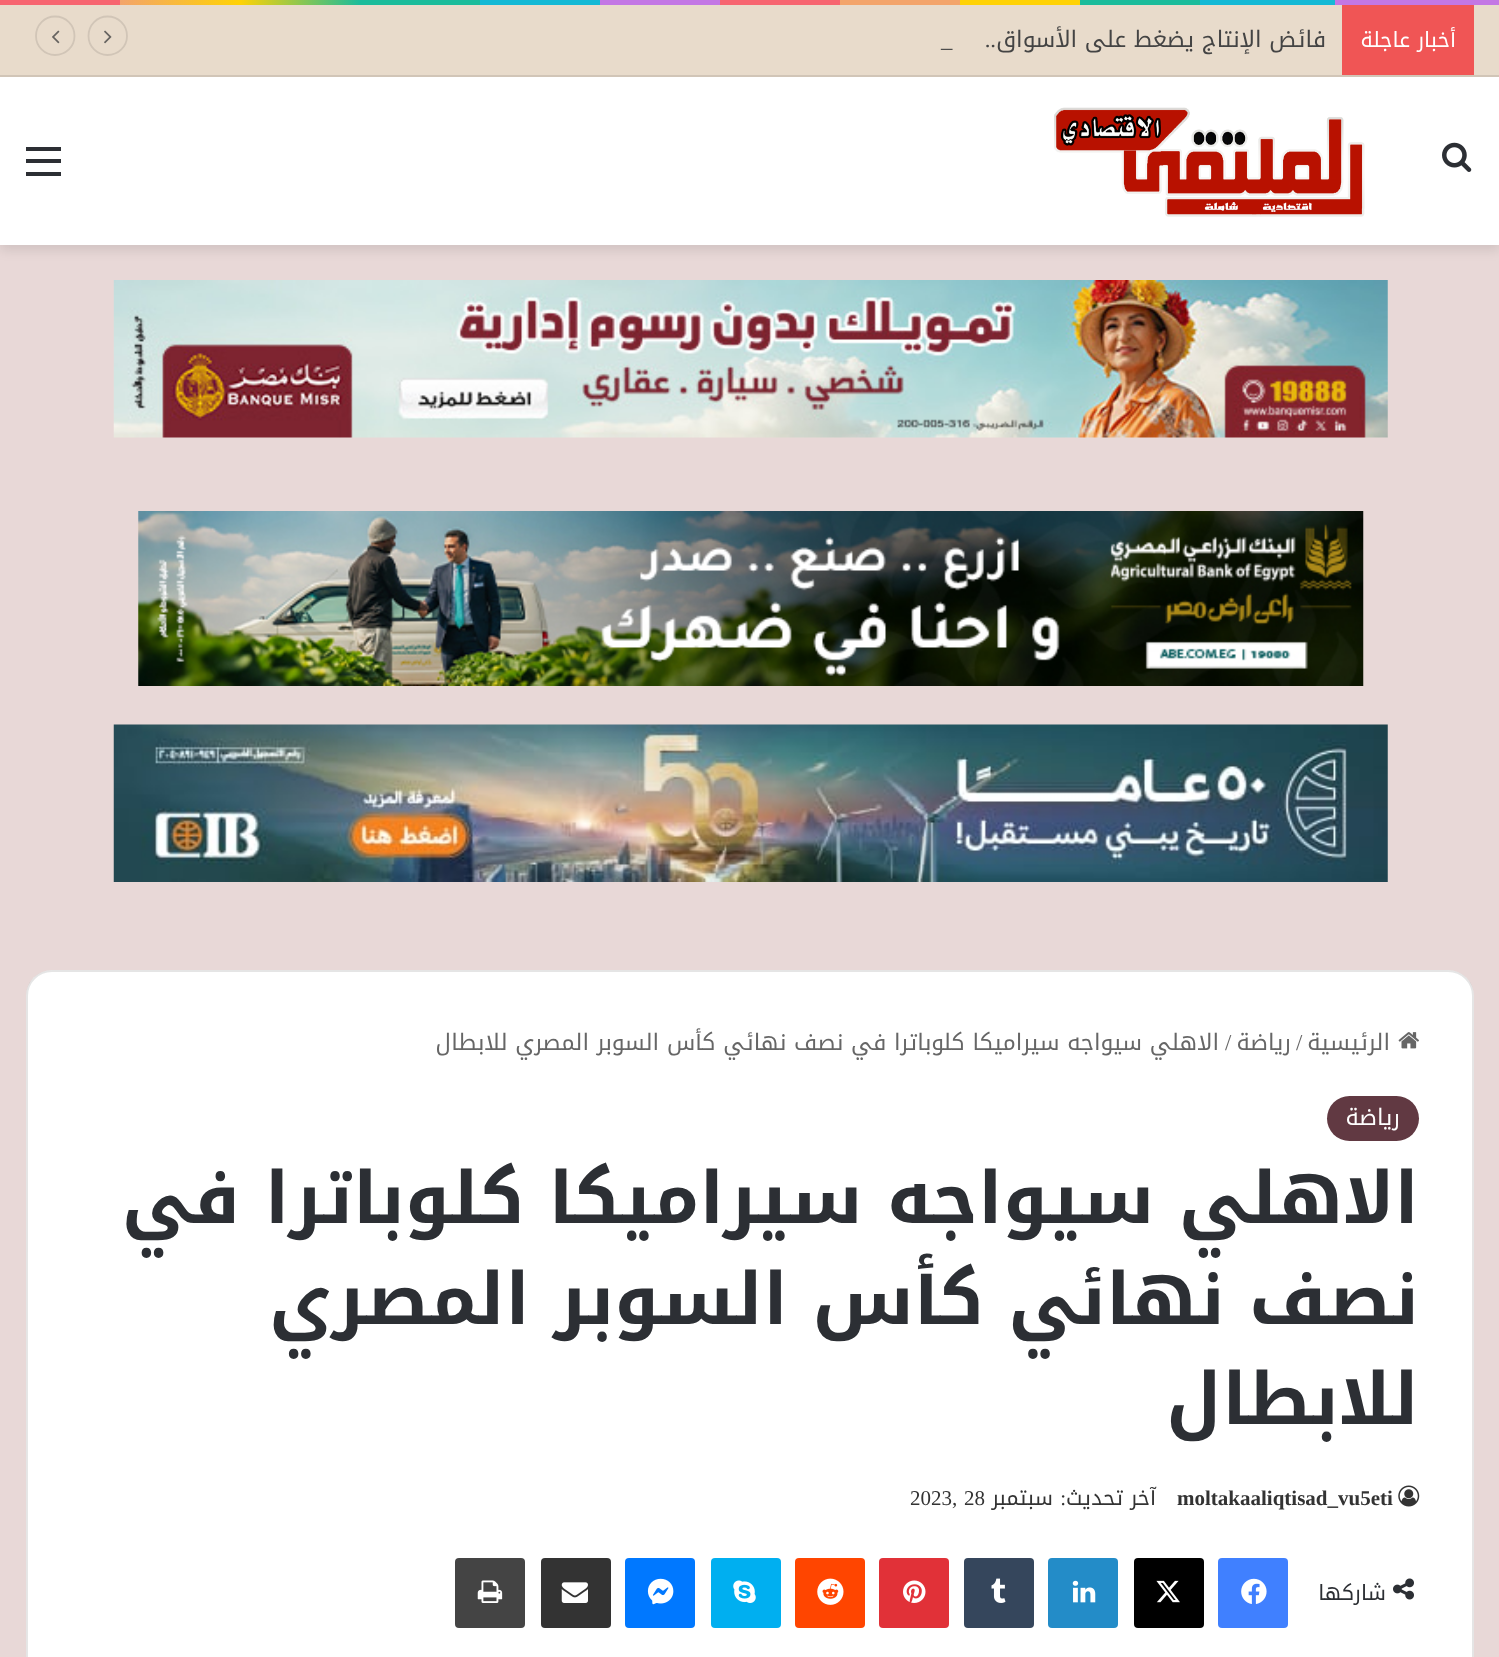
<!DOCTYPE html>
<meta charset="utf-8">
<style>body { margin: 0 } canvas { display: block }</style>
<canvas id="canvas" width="1499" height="1657"></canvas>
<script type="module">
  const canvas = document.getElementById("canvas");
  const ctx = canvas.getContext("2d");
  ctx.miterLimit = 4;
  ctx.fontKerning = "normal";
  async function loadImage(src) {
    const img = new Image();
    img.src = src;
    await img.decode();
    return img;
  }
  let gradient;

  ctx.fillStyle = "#e8d8d7";
  ctx.fillRect(0, 0, 1499, 1657);
  gradient = ctx.createLinearGradient(0, 2.6, 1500, 2.6);
  gradient.addColorStop(0, "#f76570");
  gradient.addColorStop(0.08, "#f76570");
  gradient.addColorStop(0.08, "#f3a46b");
  gradient.addColorStop(0.16, "#ffd205");
  gradient.addColorStop(0.24, "#1bbc9b");
  gradient.addColorStop(0.32, "#1bbc9b");
  gradient.addColorStop(0.32, "#14b9d5");
  gradient.addColorStop(0.4, "#14b9d5");
  gradient.addColorStop(0.4, "#c377e4");
  gradient.addColorStop(0.48, "#c377e4");
  gradient.addColorStop(0.48, "#f76570");
  gradient.addColorStop(0.56, "#f76570");
  gradient.addColorStop(0.56, "#f3a46b");
  gradient.addColorStop(0.64, "#f3a46b");
  gradient.addColorStop(0.64, "#ffd205");
  gradient.addColorStop(0.72, "#ffd205");
  gradient.addColorStop(0.72, "#1bbc9b");
  gradient.addColorStop(0.8, "#1bbc9b");
  gradient.addColorStop(0.8, "#14b9d5");
  gradient.addColorStop(0.89, "#14b9d5");
  gradient.addColorStop(0.89, "#c377e4");
  gradient.addColorStop(1, "#c377e4");
  ctx.fillStyle = gradient;
  ctx.fillRect(0, 0, 1499, 5);
  ctx.fillStyle = "rgba(0, 0, 0, 0.1)";
  ctx.filter = "blur(6px)";
  ctx.beginPath();
  ctx.rect(0, 82, 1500, 168);
  ctx.fill();
  ctx.filter = "none";
  ctx.fillStyle = "#e8dbcb";
  ctx.fillRect(0, 5, 1499, 70);
  ctx.fillStyle = "#d1c5b7";
  ctx.fillRect(0, 75, 1499, 2);
  ctx.fillStyle = "#f05555";
  ctx.fillRect(1342, 5, 132, 70);
  ctx.direction = "rtl";
  ctx.font = "21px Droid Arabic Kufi";
  ctx.fillStyle = "#ffffff";
  ctx.fillText("أخبار عاجلة", 1456, 47);
  ctx.font = "22.75px Droid Arabic Kufi";
  ctx.fillStyle = "#444444";
  ctx.fillText("فائض الإنتاج يضغط على الأسواق", 1326, 47);
  ctx.font = "22.75px Liberation Serif";
  ctx.fillText("..", 996, 47);
  ctx.direction = "ltr";
  ctx.fillText("_", 941, 47);
  ctx.beginPath();
  ctx.moveTo(107.5, 55);
  ctx.bezierCurveTo(97, 55, 88.5, 46.5, 88.5, 36);
  ctx.bezierCurveTo(88.5, 25, 97, 16.5, 107.5, 16.5);
  ctx.bezierCurveTo(118.5, 16.5, 127, 25, 127, 36);
  ctx.bezierCurveTo(127, 46.5, 118.5, 55, 107.5, 55);
  ctx.closePath();
  ctx.strokeStyle = "#d1c5b7";
  ctx.lineWidth = 1.8;
  ctx.stroke();
  ctx.drawImage(await loadImage("img1.png"), 104, 30, 8, 14);
  ctx.beginPath();
  ctx.moveTo(55, 55);
  ctx.bezierCurveTo(44.5, 55, 36, 46.5, 36, 36);
  ctx.bezierCurveTo(36, 25, 44.5, 16.5, 55, 16.5);
  ctx.bezierCurveTo(66, 16.5, 74.5, 25, 74.5, 36);
  ctx.bezierCurveTo(74.5, 46.5, 66, 55, 55, 55);
  ctx.closePath();
  ctx.stroke();
  ctx.drawImage(await loadImage("img2.png"), 52, 30, 8, 14);
  ctx.fillStyle = "#ffffff";
  ctx.fillRect(0, 77, 1499, 168);
  ctx.drawImage(await loadImage("img3.png"), 1442, 142, 30, 30);
  ctx.drawImage(await loadImage("img4.png"), 1054, 107, 311, 110);
  ctx.fillStyle = "#2c2f34";
  ctx.fillRect(26, 159, 35, 4);
  ctx.fillRect(26, 147, 35, 4);
  ctx.fillRect(26, 172, 35, 4);
  ctx.drawImage(await loadImage("img5.png"), 113, 280, 1275, 158);
  ctx.drawImage(await loadImage("img6.png"), 138, 511, 1226, 175);
  ctx.drawImage(await loadImage("img7.png"), 113, 724, 1275, 158);
  ctx.fillStyle = "#ffffff";
  ctx.beginPath();
  ctx.roundRect(26, 970, 1448, 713, 26);
  ctx.fill();
  ctx.beginPath();
  ctx.roundRect(27, 971, 1446, 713, 25);
  ctx.strokeStyle = "rgba(0, 0, 0, 0.1)";
  ctx.lineWidth = 2;
  ctx.stroke();
  ctx.drawImage(await loadImage("img8.png"), 1398, 1032, 21, 17);
  ctx.direction = "rtl";
  ctx.font = "22.75px Droid Arabic Kufi";
  ctx.fillStyle = "#666666";
  ctx.fillText("الرئيسية", 1390, 1050);
  ctx.direction = "ltr";
  ctx.font = "22.75px Liberation Serif";
  ctx.fillText("/", 1296, 1050);
  ctx.direction = "rtl";
  ctx.font = "22.75px Droid Arabic Kufi";
  ctx.fillText("رياضة", 1291, 1050);
  ctx.direction = "ltr";
  ctx.font = "22.75px Liberation Serif";
  ctx.fillText("/", 1225, 1050);
  ctx.direction = "rtl";
  ctx.font = "22.75px Droid Arabic Kufi";
  ctx.fillText("الاهلي سيواجه سيراميكا كلوباترا في نصف نهائي كأس السوبر المصري للابطال", 1219, 1050);
  ctx.fillStyle = "#613942";
  ctx.beginPath();
  ctx.roundRect(1327, 1096, 92, 45, 22.5);
  ctx.fill();
  ctx.fillStyle = "#ffffff";
  ctx.fillText("رياضة", 1400, 1125);
  ctx.font = "bold 71.75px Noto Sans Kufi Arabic";
  ctx.fillStyle = "#2c2f34";
  ctx.fillText("الاهلي سيواجه سيراميكا كلوباترا في", 1419, 1223);
  ctx.fillText("نصف نهائي كأس السوبر المصري", 1419, 1324);
  ctx.fillText("للابطال", 1419, 1424);
  ctx.drawImage(await loadImage("img9.png"), 1398, 1485, 22, 22);
  ctx.direction = "ltr";
  ctx.font = "bold 21px Liberation Serif";
  ctx.fillStyle = "#333333";
  ctx.fillText("moltakaaliqtisad_vu5eti", 1177, 1505);
  ctx.direction = "rtl";
  ctx.font = "21px Droid Arabic Kufi";
  ctx.fillText("آخر تحديث", 1156, 1505);
  ctx.font = "21px Liberation Serif";
  ctx.fillText(":", 1066, 1505);
  ctx.font = "21px Droid Arabic Kufi";
  ctx.fillText("سبتمبر", 1053, 1505);
  ctx.direction = "ltr";
  ctx.font = "21px Liberation Serif";
  ctx.fillText("28", 964, 1505);
  ctx.fillText("2023,", 910, 1505);
  ctx.drawImage(await loadImage("img10.png"), 1393, 1578, 21, 22);
  ctx.direction = "rtl";
  ctx.font = "21px Droid Arabic Kufi";
  ctx.fillStyle = "#2c2f34";
  ctx.fillText("شاركها", 1386, 1600);
  ctx.fillStyle = "#4080ff";
  ctx.beginPath();
  ctx.roundRect(1218, 1558, 70, 70, 4);
  ctx.fill();
  ctx.drawImage(await loadImage("img11.png"), 1241, 1578, 26, 26);
  ctx.fillStyle = "#000000";
  ctx.beginPath();
  ctx.roundRect(1134, 1558, 70, 70, 4);
  ctx.fill();
  ctx.drawImage(await loadImage("img12.png"), 1156, 1580, 24, 23);
  ctx.fillStyle = "#238cc8";
  ctx.beginPath();
  ctx.roundRect(1048, 1558, 70, 70, 4);
  ctx.fill();
  ctx.drawImage(await loadImage("img13.png"), 1072, 1580, 24, 23);
  ctx.fillStyle = "#35465c";
  ctx.beginPath();
  ctx.roundRect(964, 1558, 70, 70, 4);
  ctx.fill();
  ctx.drawImage(await loadImage("img14.png"), 991, 1578, 15, 25);
  ctx.fillStyle = "#e13138";
  ctx.beginPath();
  ctx.roundRect(879, 1558, 70, 70, 4);
  ctx.fill();
  ctx.drawImage(await loadImage("img15.png"), 903, 1580, 23, 23);
  ctx.fillStyle = "#ff4500";
  ctx.beginPath();
  ctx.roundRect(795, 1558, 70, 70, 4);
  ctx.fill();
  ctx.drawImage(await loadImage("img16.png"), 817, 1578, 27, 27);
  ctx.fillStyle = "#00aff0";
  ctx.beginPath();
  ctx.roundRect(711, 1558, 70, 70, 4);
  ctx.fill();
  ctx.drawImage(await loadImage("img17.png"), 733, 1580, 23, 23);
  ctx.fillStyle = "#0078ff";
  ctx.beginPath();
  ctx.roundRect(625, 1558, 70, 70, 4);
  ctx.fill();
  ctx.drawImage(await loadImage("img18.png"), 647, 1578, 27, 27);
  ctx.fillStyle = "#333333";
  ctx.beginPath();
  ctx.roundRect(541, 1558, 70, 70, 4);
  ctx.fill();
  ctx.drawImage(await loadImage("img19.png"), 561, 1582, 27, 21);
  ctx.fillStyle = "#444444";
  ctx.beginPath();
  ctx.roundRect(455, 1558, 70, 70, 4);
  ctx.fill();
  ctx.drawImage(await loadImage("img20.png"), 477, 1580, 26, 23);
</script>
